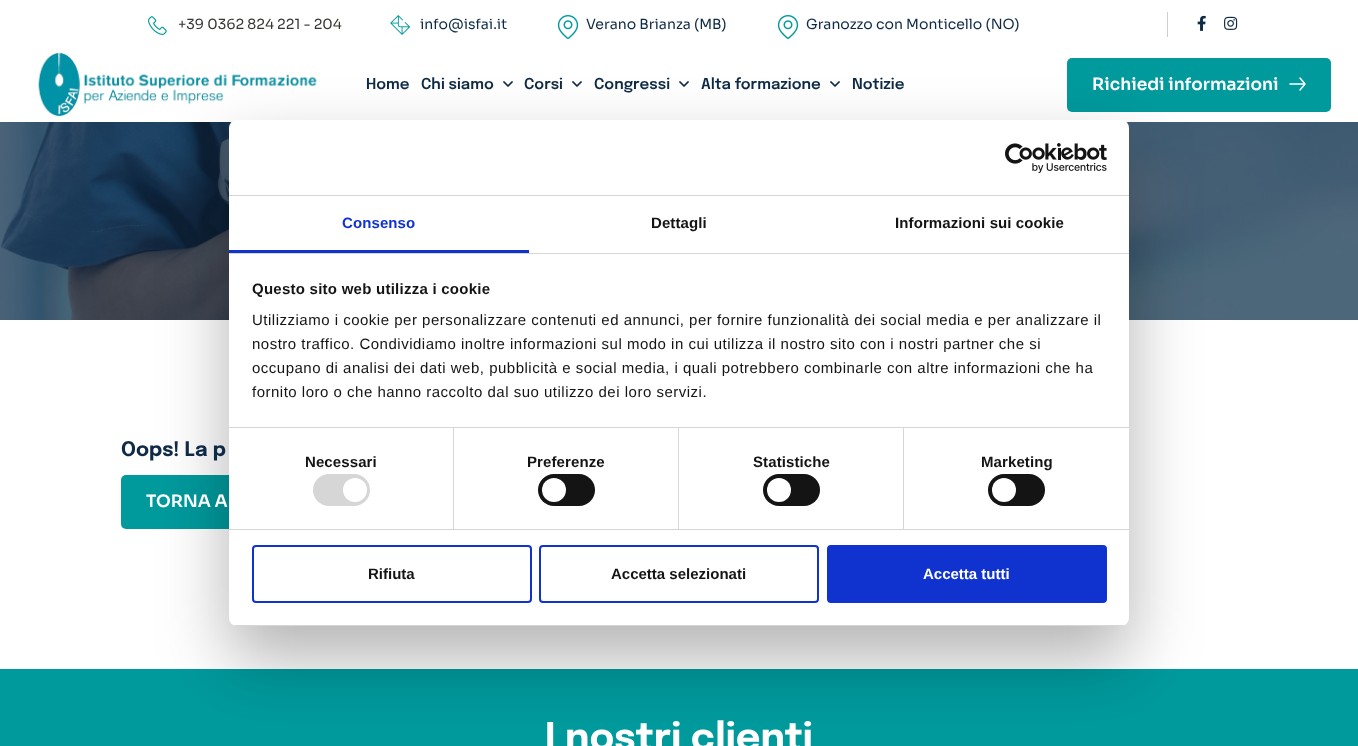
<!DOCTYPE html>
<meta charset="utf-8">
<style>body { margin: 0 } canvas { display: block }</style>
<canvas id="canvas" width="1358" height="746"></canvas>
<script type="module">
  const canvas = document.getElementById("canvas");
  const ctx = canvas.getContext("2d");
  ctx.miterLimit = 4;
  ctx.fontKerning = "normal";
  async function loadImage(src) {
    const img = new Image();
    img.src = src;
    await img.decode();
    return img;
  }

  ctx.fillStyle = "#ffffff";
  ctx.fillRect(0, 0, 1358, 746);
  ctx.drawImage(await loadImage("img1.png"), 148, 16, 19, 19);
  ctx.font = "14px Sora";
  ctx.fillStyle = "#333931";
  ctx.fillText("+39 0362 824 221 - 204", 178, 29);
  ctx.drawImage(await loadImage("img2.png"), 390, 15, 20, 20);
  ctx.fillStyle = "#0e2a46";
  ctx.fillText("info@isfai.it", 420, 29);
  ctx.drawImage(await loadImage("img3.png"), 557, 15, 22, 24);
  ctx.fillText("Verano Brianza (MB)", 586, 29);
  ctx.drawImage(await loadImage("img3.png"), 777, 15, 22, 24);
  ctx.fillText("Granozzo con Monticello (NO)", 806, 29);
  ctx.fillStyle = "#cecece";
  ctx.fillRect(1167, 12, 1, 25);
  ctx.drawImage(await loadImage("img4.png"), 1197, 15, 9, 16);
  ctx.drawImage(await loadImage("img5.png"), 1224, 16, 14, 14);
  ctx.drawImage(await loadImage("img6.png"), 38, 53, 279, 64);
  ctx.font = "600 15px Epilogue";
  ctx.fillStyle = "#0e2a46";
  ctx.fillText("Home", 366, 89);
  ctx.fillText("Chi siamo", 421, 89);
  ctx.drawImage(await loadImage("img7.png"), 503, 81, 10, 6);
  ctx.fillText("Corsi", 524, 89);
  ctx.drawImage(await loadImage("img7.png"), 572, 81, 10, 6);
  ctx.fillText("Congressi", 594, 89);
  ctx.drawImage(await loadImage("img7.png"), 679, 81, 10, 6);
  ctx.fillText("Alta formazione", 701, 89);
  ctx.drawImage(await loadImage("img7.png"), 830, 81, 10, 6);
  ctx.fillText("Notizie", 852, 89);
  ctx.fillStyle = "#009a9d";
  ctx.beginPath();
  ctx.roundRect(1067, 58, 264, 54, 5);
  ctx.fill();
  ctx.font = "600 17px Sora";
  ctx.fillStyle = "#ffffff";
  ctx.fillText("Richiedi informazioni", 1092, 90);
  ctx.beginPath();
  ctx.moveTo(1300, 78);
  ctx.lineTo(1305, 84);
  ctx.lineTo(1300, 90);
  ctx.moveTo(1290, 84);
  ctx.lineTo(1305, 84);
  ctx.strokeStyle = "#ffffff";
  ctx.lineWidth = 1.5;
  ctx.lineCap = "round";
  ctx.lineJoin = "round";
  ctx.stroke();
  ctx.drawImage(await loadImage("img9.png"), 0, 122, 1358, 198);
  ctx.fillStyle = "#009a9d";
  ctx.beginPath();
  ctx.roundRect(121, 475, 253, 54, 5);
  ctx.fill();
  ctx.fillRect(0, 669, 1358, 77);
  ctx.fillStyle = "rgba(0, 0, 0, 0.3)";
  ctx.filter = "blur(34px)";
  ctx.beginPath();
  ctx.roundRect(229, 152, 900, 506, 8);
  ctx.fill();
  ctx.filter = "none";
  ctx.fillStyle = "#ffffff";
  ctx.beginPath();
  ctx.roundRect(229, 120, 900, 506, 8);
  ctx.fill();
  ctx.fillStyle = "#d6d6d6";
  ctx.fillRect(229, 195, 900, 1);
  ctx.drawImage(await loadImage("img8.png"), 1005, 143, 102, 30);
  ctx.fillRect(229, 253, 900, 1);
  ctx.fillStyle = "#1032cf";
  ctx.fillRect(229, 250, 300, 3);
  ctx.letterSpacing = "0.1px";
  ctx.font = "bold 15px Liberation Sans";
  ctx.fillText("Consenso", 342, 228);
  ctx.fillStyle = "#141414";
  ctx.fillText("Dettagli", 651, 228);
  ctx.fillText("Informazioni sui cookie", 895, 228);
  ctx.fillStyle = "#d6d6d6";
  ctx.fillRect(229, 427, 900, 1);
  ctx.letterSpacing = "0.25px";
  ctx.fillStyle = "#141414";
  ctx.fillText("Questo sito web utilizza i cookie", 252, 294);
  ctx.letterSpacing = "0.5px";
  ctx.font = "15px Liberation Sans";
  ctx.fillText("Utilizziamo i cookie per personalizzare contenuti ed annunci, per fornire funzionalità dei social media e per analizzare il", 252, 325);
  ctx.fillText("nostro traffico. Condividiamo inoltre informazioni sul modo in cui utilizza il nostro sito con i nostri partner che si", 252, 349);
  ctx.fillText("occupano di analisi dei dati web, pubblicità e social media, i quali potrebbero combinarle con altre informazioni che ha", 252, 373);
  ctx.fillText("fornito loro o che hanno raccolto dal suo utilizzo dei loro servizi.", 252, 397);
  ctx.fillStyle = "#d6d6d6";
  ctx.fillRect(229, 529, 900, 1);
  ctx.fillRect(453, 428, 1, 101);
  ctx.letterSpacing = "0.1px";
  ctx.font = "bold 15px Liberation Sans";
  ctx.fillStyle = "#141414";
  ctx.fillText("Necessari", 305, 467);
  ctx.fillStyle = "#d6d6d6";
  ctx.beginPath();
  ctx.roundRect(313, 474, 57, 32, 16);
  ctx.fill();
  ctx.fillStyle = "#ffffff";
  ctx.beginPath();
  ctx.arc(355, 490, 12, 0, Math.PI * 2);
  ctx.fill();
  ctx.fillStyle = "#d6d6d6";
  ctx.fillRect(678, 428, 1, 101);
  ctx.fillStyle = "#141414";
  ctx.fillText("Preferenze", 527, 467);
  ctx.beginPath();
  ctx.roundRect(538, 474, 57, 32, 16);
  ctx.fill();
  ctx.fillStyle = "#ffffff";
  ctx.beginPath();
  ctx.arc(554, 490, 12, 0, Math.PI * 2);
  ctx.fill();
  ctx.fillStyle = "#d6d6d6";
  ctx.fillRect(903, 428, 1, 101);
  ctx.fillStyle = "#141414";
  ctx.fillText("Statistiche", 753, 467);
  ctx.beginPath();
  ctx.roundRect(763, 474, 57, 32, 16);
  ctx.fill();
  ctx.fillStyle = "#ffffff";
  ctx.beginPath();
  ctx.arc(779, 490, 12, 0, Math.PI * 2);
  ctx.fill();
  ctx.fillStyle = "#141414";
  ctx.fillText("Marketing", 981, 467);
  ctx.beginPath();
  ctx.roundRect(988, 474, 57, 32, 16);
  ctx.fill();
  ctx.fillStyle = "#ffffff";
  ctx.beginPath();
  ctx.arc(1004, 490, 12, 0, Math.PI * 2);
  ctx.fill();
  ctx.save();
  ctx.beginPath();
  ctx.roundRect(229, 120, 900, 506, 8);
  ctx.clip();
  ctx.fillStyle = "#d6d6d6";
  ctx.fillRect(229, 625, 900, 1);
  ctx.restore();
  ctx.beginPath();
  ctx.roundRect(253, 546, 278, 56, 3);
  ctx.strokeStyle = "#1032cf";
  ctx.lineWidth = 2;
  ctx.lineJoin = "miter";
  ctx.stroke();
  ctx.letterSpacing = "0px";
  ctx.fillStyle = "#141414";
  ctx.fillText("Rifiuta", 368, 579);
  ctx.beginPath();
  ctx.roundRect(540, 546, 278, 56, 3);
  ctx.stroke();
  ctx.fillText("Accetta selezionati", 611, 579);
  ctx.fillStyle = "#1032cf";
  ctx.beginPath();
  ctx.roundRect(828, 546, 278, 56, 3);
  ctx.fill();
  ctx.stroke();
  ctx.fillStyle = "#ffffff";
  ctx.fillText("Accetta tutti", 923, 579);
  ctx.font = "bold 20px Epilogue";
  ctx.fillStyle = "#0e2a46";
  ctx.fillText("Oops! La p", 121, 456);
  ctx.font = "600 17px Sora";
  ctx.fillStyle = "#ffffff";
  ctx.fillText("TORNA A", 146, 507);
  ctx.font = "bold 38px Epilogue";
  ctx.fillText("I nostri clienti", 545, 750);
</script>
